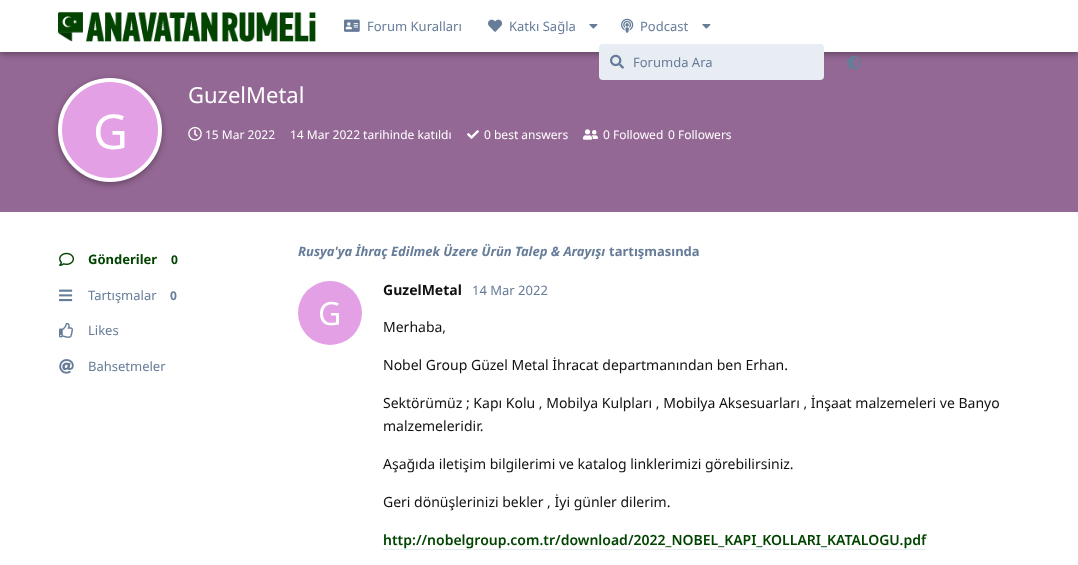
<!DOCTYPE html>
<meta charset="utf-8">
<style>body { margin: 0 } canvas { display: block }</style>
<canvas id="canvas" width="1078" height="565"></canvas>
<script type="module">
  const canvas = document.getElementById("canvas");
  const ctx = canvas.getContext("2d");
  ctx.miterLimit = 4;
  ctx.fontKerning = "normal";
  async function loadImage(src) {
    const img = new Image();
    img.src = src;
    await img.decode();
    return img;
  }

  ctx.fillStyle = "#ffffff";
  ctx.fillRect(0, 0, 1078, 565);
  ctx.fillStyle = "#946894";
  ctx.fillRect(0, 52, 1078, 160);
  ctx.fillStyle = "rgba(0, 0, 0, 0.35)";
  ctx.filter = "blur(3px)";
  ctx.beginPath();
  ctx.rect(0, 2, 1078, 52);
  ctx.fill();
  ctx.filter = "none";
  ctx.fillStyle = "#ffffff";
  ctx.fillRect(0, 0, 1078, 52);
  ctx.drawImage(await loadImage("img1.png"), 58, 12, 258, 30);
  ctx.drawImage(await loadImage("img2.png"), 344, 19, 16, 13);
  ctx.font = "13px Noto Sans";
  ctx.fillStyle = "#667c99";
  ctx.fillText("Forum Kuralları", 367, 31);
  ctx.drawImage(await loadImage("img3.png"), 488, 19, 14, 13);
  ctx.fillText("Katkı Sağla", 509, 31);
  ctx.drawImage(await loadImage("img4.png"), 589, 24, 9, 5);
  ctx.drawImage(await loadImage("img5.png"), 621, 18, 13, 15);
  ctx.fillText("Podcast", 640, 31);
  ctx.drawImage(await loadImage("img4.png"), 702, 24, 9, 5);
  ctx.fillStyle = "#e8ecf3";
  ctx.beginPath();
  ctx.roundRect(599, 44, 225, 36, 4);
  ctx.fill();
  ctx.drawImage(await loadImage("img6.png"), 610, 54, 14, 15);
  ctx.fillStyle = "#667c99";
  ctx.fillText("Forumda Ara", 633, 67);
  ctx.drawImage(await loadImage("img7.png"), 847, 56, 14, 14);
  ctx.font = "22px Noto Sans";
  ctx.fillStyle = "#ffffff";
  ctx.fillText("GuzelMetal", 188, 103);
  ctx.fillStyle = "rgba(0, 0, 0, 0.35)";
  ctx.filter = "blur(3px)";
  ctx.beginPath();
  ctx.roundRect(58, 80, 104, 104, 52);
  ctx.fill();
  ctx.filter = "none";
  ctx.fillStyle = "#e3a0e5";
  ctx.beginPath();
  ctx.arc(110, 130, 50, 0, Math.PI * 2);
  ctx.fill();
  ctx.strokeStyle = "#ffffff";
  ctx.lineWidth = 4;
  ctx.stroke();
  ctx.font = "48px Noto Sans";
  ctx.fillStyle = "#ffffff";
  ctx.fillText("G", 93, 149);
  ctx.drawImage(await loadImage("img8.png"), 188, 127, 14, 14);
  ctx.font = "12px Noto Sans";
  ctx.fillText("15 Mar 2022", 205, 139);
  ctx.fillText("14 Mar 2022 tarihinde katıldı", 290, 139);
  ctx.drawImage(await loadImage("img9.png"), 467, 130, 12, 9);
  ctx.fillText("0 best answers", 484, 139);
  ctx.drawImage(await loadImage("img10.png"), 583, 129, 15, 11);
  ctx.fillText("0 Followed", 603, 139);
  ctx.fillText("0 Followers", 668, 139);
  ctx.drawImage(await loadImage("img11.png"), 59, 252, 15, 14);
  ctx.font = "bold 13px Noto Sans";
  ctx.fillStyle = "#014400";
  ctx.fillText("Gönderiler", 88, 264);
  ctx.font = "bold 12px Noto Sans";
  ctx.fillText("0", 171, 264);
  ctx.drawImage(await loadImage("img12.png"), 59, 289, 14, 13);
  ctx.font = "13px Noto Sans";
  ctx.fillStyle = "#667c99";
  ctx.fillText("Tartışmalar", 88, 300);
  ctx.font = "bold 12px Noto Sans";
  ctx.fillText("0", 170, 300);
  ctx.drawImage(await loadImage("img13.png"), 59, 322, 14, 16);
  ctx.font = "13px Noto Sans";
  ctx.fillText("Likes", 88, 335);
  ctx.drawImage(await loadImage("img14.png"), 59, 359, 15, 15);
  ctx.fillText("Bahsetmeler", 88, 371);
  ctx.font = "italic bold 13px Noto Sans";
  ctx.fillText("Rusya'ya İhraç Edilmek Üzere Ürün Talep & Arayışı", 298, 256);
  ctx.font = "bold 13px Noto Sans";
  ctx.fillText("tartışmasında", 609, 256);
  ctx.font = "bold 14px Noto Sans";
  ctx.fillStyle = "#111111";
  ctx.fillText("GuzelMetal", 383, 295);
  ctx.fillStyle = "#e3a0e5";
  ctx.beginPath();
  ctx.arc(330, 313, 32, 0, Math.PI * 2);
  ctx.fill();
  ctx.font = "32px Noto Sans";
  ctx.fillStyle = "#ffffff";
  ctx.fillText("G", 318, 325);
  ctx.font = "13px Noto Sans";
  ctx.fillStyle = "#667c99";
  ctx.fillText("14 Mar 2022", 472, 295);
  ctx.font = "14px Noto Sans";
  ctx.fillStyle = "#111111";
  ctx.fillText("Merhaba,", 383, 332);
  ctx.fillText("Nobel Group Güzel Metal İhracat departmanından ben Erhan.", 383, 370);
  ctx.fillText("Sektörümüz ; Kapı Kolu , Mobilya Kulpları , Mobilya Aksesuarları , İnşaat malzemeleri ve Banyo", 383, 408);
  ctx.fillText("malzemeleridir.", 383, 431);
  ctx.fillText("Aşağıda iletişim bilgilerimi ve katalog linklerimizi görebilirsiniz.", 383, 469);
  ctx.fillText("Geri dönüşlerinizi bekler , İyi günler dilerim.", 383, 507);
  ctx.font = "600 14px Noto Sans";
  ctx.fillStyle = "#014400";
  ctx.fillText("http://nobelgroup.com.tr/download/2022_NOBEL_KAPI_KOLLARI_KATALOGU.pdf", 383, 545);
  ctx.fillStyle = "#e8ecf3";
  ctx.fillRect(383, 549, 543, 1);
</script>
